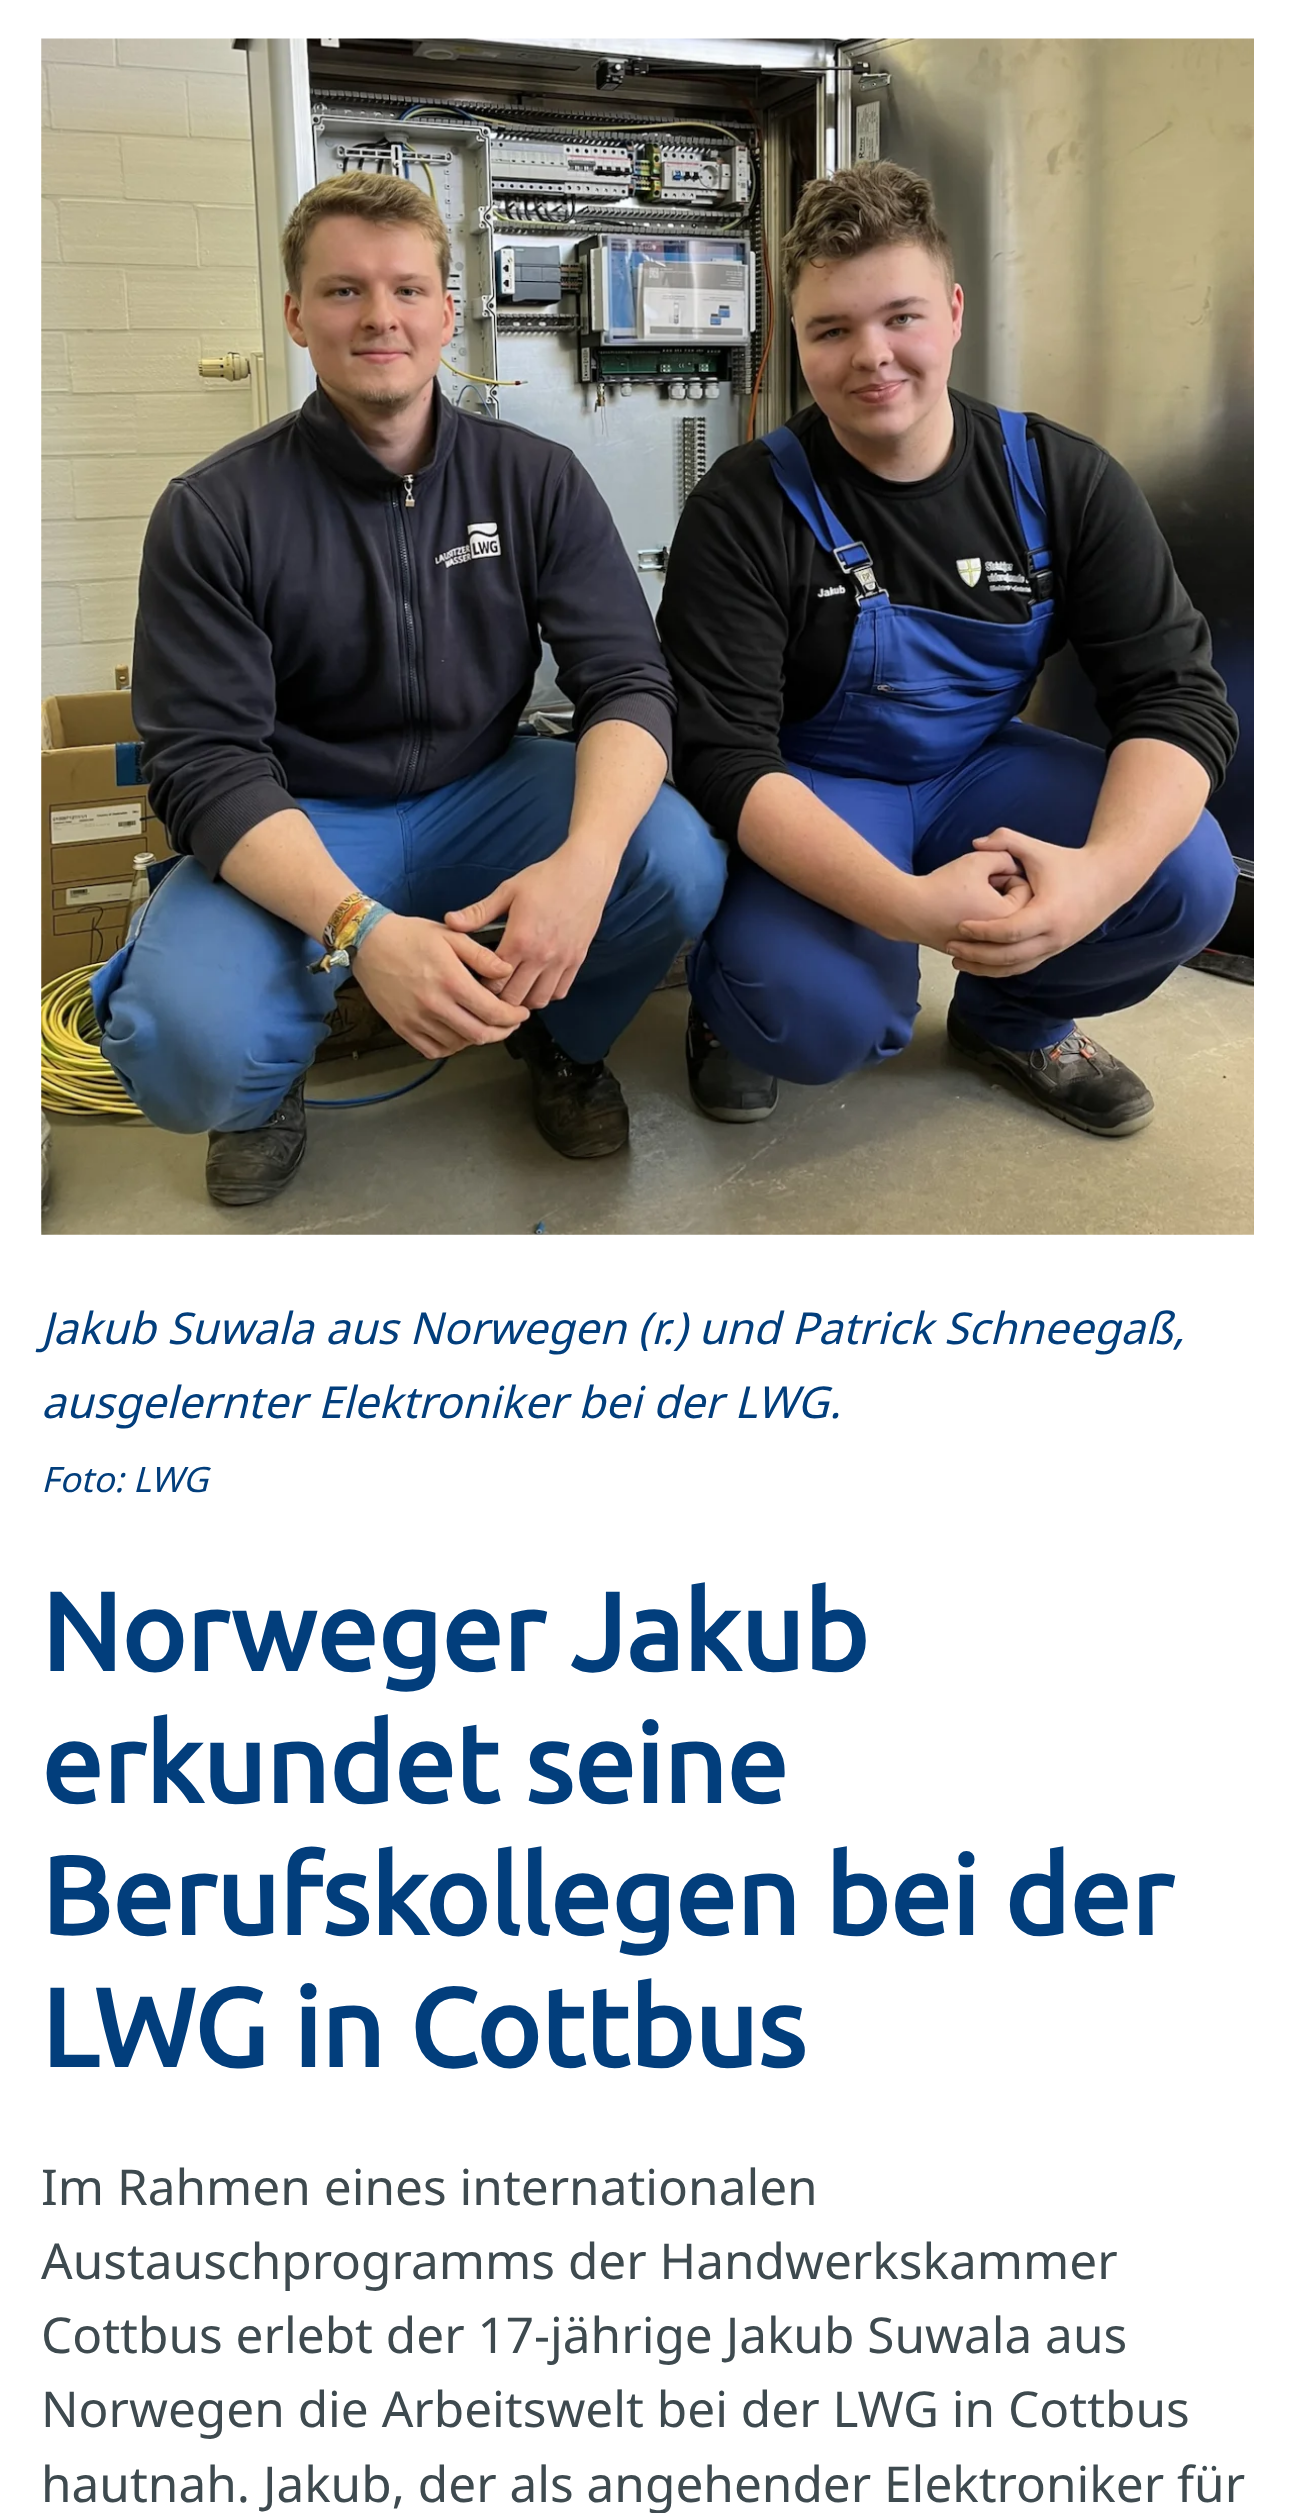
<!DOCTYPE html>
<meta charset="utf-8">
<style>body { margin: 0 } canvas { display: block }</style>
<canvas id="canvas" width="1294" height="2513"></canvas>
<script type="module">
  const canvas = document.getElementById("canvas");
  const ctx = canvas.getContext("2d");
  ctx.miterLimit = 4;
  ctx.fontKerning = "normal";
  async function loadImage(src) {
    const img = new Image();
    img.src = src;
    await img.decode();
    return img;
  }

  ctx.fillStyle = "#ffffff";
  ctx.fillRect(0, 0, 1294, 2513);
  ctx.drawImage(await loadImage("img1.png"), 41, 38, 1213, 1197);
  ctx.font = "italic 44px Noto Sans";
  ctx.fillStyle = "#023e7c";
  ctx.fillText("Jakub Suwala aus Norwegen (r.) und Patrick Schneegaß,", 41, 1344);
  ctx.fillText("ausgelernter Elektroniker bei der LWG.", 41, 1418);
  ctx.font = "italic 35px Noto Sans";
  ctx.fillText("Foto: LWG", 41, 1492);
  ctx.font = "bold 110px Ubuntu";
  ctx.fillText("Norweger Jakub", 41, 1671);
  ctx.fillText("erkundet seine", 41, 1803);
  ctx.fillText("Berufskollegen bei der", 41, 1935);
  ctx.fillText("LWG in Cottbus", 41, 2067);
  ctx.font = "49.5px Noto Sans";
  ctx.fillStyle = "#3e4a4f";
  ctx.fillText("Im Rahmen eines internationalen", 41, 2205);
  ctx.fillText("Austauschprogramms der Handwerkskammer", 41, 2279);
  ctx.fillText("Cottbus erlebt der 17-jährige Jakub Suwala aus", 41, 2353);
  ctx.fillText("Norwegen die Arbeitswelt bei der LWG in Cottbus", 41, 2427);
  ctx.fillText("hautnah. Jakub, der als angehender Elektroniker für", 41, 2502);
</script>
